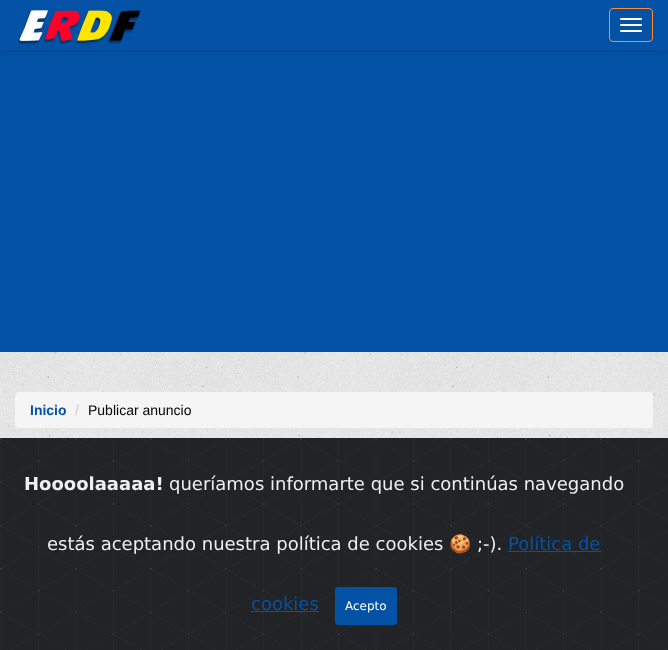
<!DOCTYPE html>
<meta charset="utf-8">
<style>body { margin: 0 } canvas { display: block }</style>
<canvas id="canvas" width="668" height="650"></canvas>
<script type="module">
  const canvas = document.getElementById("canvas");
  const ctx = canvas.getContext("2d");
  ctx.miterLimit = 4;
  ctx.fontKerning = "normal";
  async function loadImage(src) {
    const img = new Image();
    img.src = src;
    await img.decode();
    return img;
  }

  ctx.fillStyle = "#ffffff";
  ctx.fillRect(0, 0, 668, 650);
  ctx.drawImage(await loadImage("img1.png"), 0, 352, 668, 86);
  ctx.fillStyle = "#0452a5";
  ctx.fillRect(0, 50, 668, 302);
  ctx.fillStyle = "rgba(0, 0, 0, 0.1)";
  ctx.filter = "blur(5px)";
  ctx.beginPath();
  ctx.rect(0, 1, 668, 51);
  ctx.fill();
  ctx.filter = "none";
  ctx.fillStyle = "#0452a5";
  ctx.fillRect(0, 0, 668, 50);
  ctx.drawImage(await loadImage("img2.png"), 18, 10, 123, 35);
  ctx.beginPath();
  ctx.roundRect(609.5, 8.5, 43, 33, 3.5);
  ctx.strokeStyle = "#ff8d36";
  ctx.stroke();
  ctx.fillStyle = "#ffffff";
  ctx.beginPath();
  ctx.roundRect(620, 18, 22, 2, 1);
  ctx.fill();
  ctx.beginPath();
  ctx.roundRect(620, 24, 22, 2, 1);
  ctx.fill();
  ctx.beginPath();
  ctx.roundRect(620, 30, 22, 2, 1);
  ctx.fill();
  ctx.fillStyle = "#f5f5f5";
  ctx.beginPath();
  ctx.roundRect(15, 392, 638, 36, 4);
  ctx.fill();
  ctx.font = "bold 14px Liberation Sans";
  ctx.fillStyle = "#0452a5";
  ctx.fillText("Inicio", 30, 415);
  ctx.font = "14px Liberation Sans";
  ctx.fillStyle = "#cccccc";
  ctx.fillText("/", 75, 415);
  ctx.fillStyle = "#000000";
  ctx.fillText("Publicar anuncio", 88, 415);
  ctx.drawImage(await loadImage("img3.png"), 0, 438, 668, 212);
  ctx.font = "bold 18px DejaVu Sans";
  ctx.fillStyle = "#ecf0f1";
  ctx.fillText("Hoooolaaaaa!", 24, 490);
  ctx.font = "18px DejaVu Sans";
  ctx.fillText("queríamos informarte que si continúas navegando", 169, 490);
  ctx.fillText("estás aceptando nuestra política de cookies", 47, 550);
  ctx.font = "18px Noto Color Emoji";
  ctx.fillText("🍪", 449, 550);
  ctx.font = "18px DejaVu Sans";
  ctx.fillText(";-).", 477, 550);
  ctx.fillStyle = "#0452a5";
  ctx.fillText("Política de", 508, 550);
  ctx.fillRect(508, 551, 93, 1);
  ctx.fillText("cookies", 251, 610);
  ctx.fillRect(251, 611, 68, 1);
  ctx.beginPath();
  ctx.roundRect(335, 587, 62, 38, 3);
  ctx.fill();
  ctx.font = "12px DejaVu Sans";
  ctx.fillStyle = "#ffffff";
  ctx.fillText("Acepto", 345, 610);
</script>
